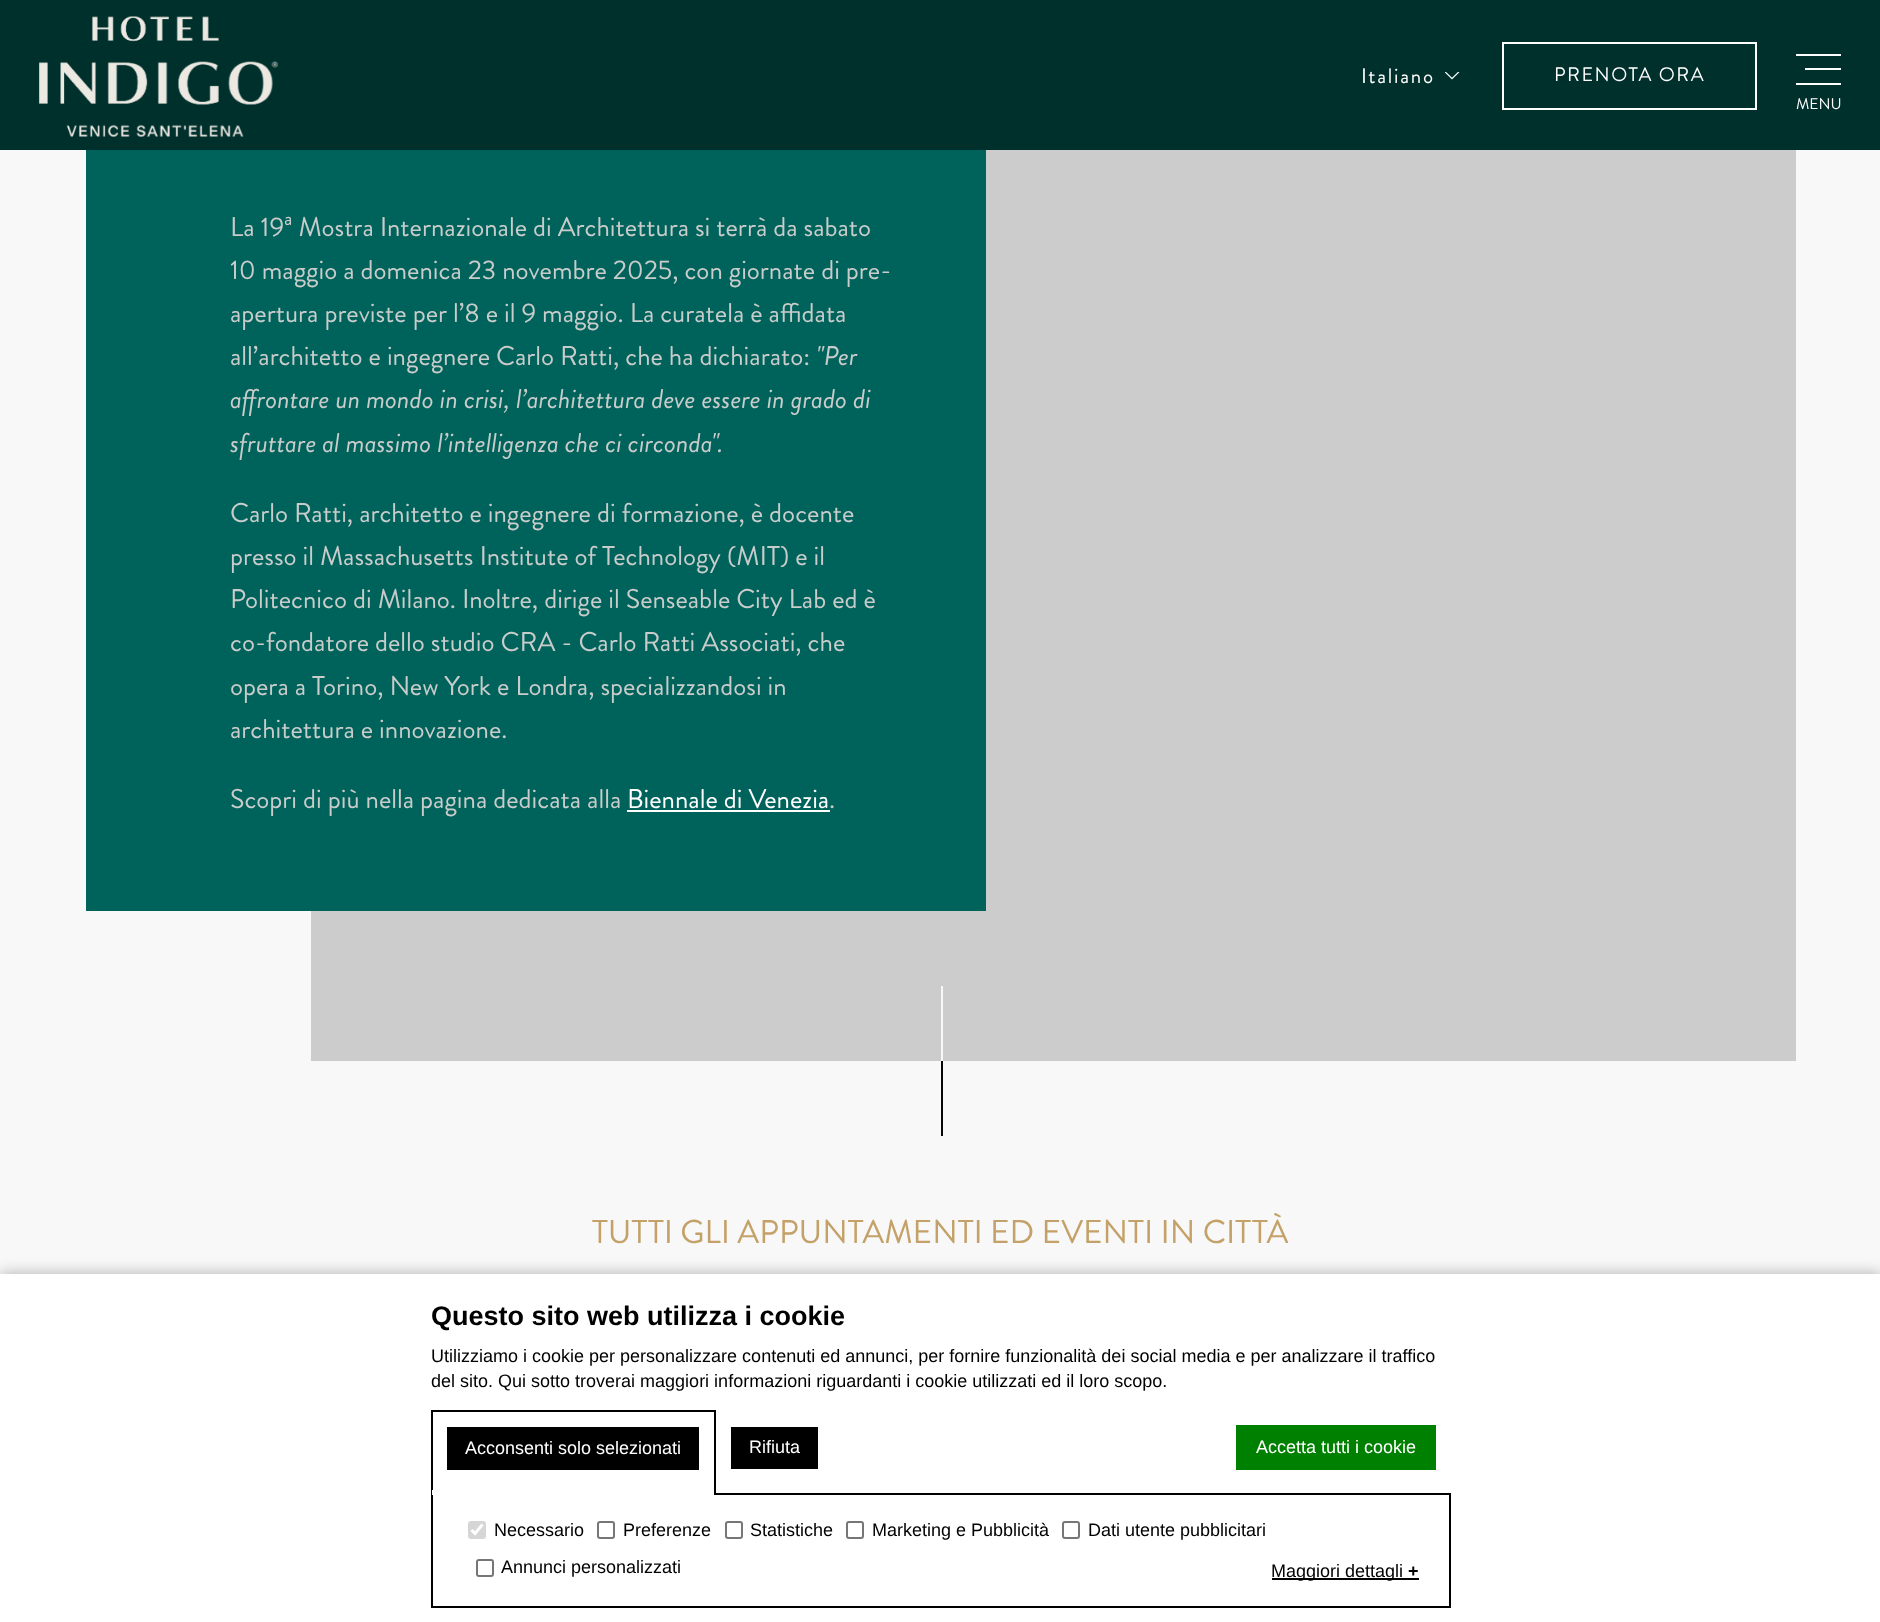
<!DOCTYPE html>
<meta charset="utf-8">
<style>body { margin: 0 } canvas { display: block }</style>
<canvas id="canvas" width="1880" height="1622"></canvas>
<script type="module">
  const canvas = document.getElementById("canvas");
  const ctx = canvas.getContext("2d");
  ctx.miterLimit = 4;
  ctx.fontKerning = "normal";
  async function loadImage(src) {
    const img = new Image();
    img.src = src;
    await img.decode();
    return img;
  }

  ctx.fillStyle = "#f8f8f8";
  ctx.fillRect(0, 0, 1880, 1622);
  ctx.fillStyle = "#00302c";
  ctx.fillRect(0, 0, 1880, 150);
  ctx.drawImage(await loadImage("img1.png"), 39, 16, 239, 121);
  ctx.letterSpacing = "1.75px";
  ctx.font = "21px Brandon Grotesque";
  ctx.fillStyle = "#ffffff";
  ctx.fillText("Italiano", 1361, 83);
  ctx.drawImage(await loadImage("img2.png"), 1445, 72, 15, 8);
  ctx.strokeStyle = "#ffffff";
  ctx.lineWidth = 2;
  ctx.strokeRect(1503, 43, 253, 66);
  ctx.letterSpacing = "1.5px";
  ctx.font = "19.5px Brandon Grotesque";
  ctx.fillText("PRENOTA ORA", 1554, 81);
  ctx.fillRect(1796, 54, 45, 2);
  ctx.fillRect(1796, 83, 45, 2);
  ctx.fillRect(1805, 68, 36, 2);
  ctx.letterSpacing = "0px";
  ctx.font = "15.5px Brandon Grotesque";
  ctx.fillText("MENU", 1796, 109);
  ctx.fillStyle = "#cccccc";
  ctx.fillRect(311, 150, 1485, 911);
  ctx.fillStyle = "#f8f8f8";
  ctx.fillRect(941, 986, 2, 75);
  ctx.fillStyle = "#00635b";
  ctx.fillRect(86, 150, 900, 761);
  ctx.font = "27px Brandon Grotesque";
  ctx.fillStyle = "#c8cccb";
  ctx.fillText("La 19ª Mostra Internazionale di Architettura si terrà da sabato", 230, 236);
  ctx.fillText("10 maggio a domenica 23 novembre 2025, con giornate di pre-", 230, 279);
  ctx.fillText("apertura previste per l’8 e il 9 maggio. La curatela è affidata", 230, 322);
  ctx.fillText("all’architetto e ingegnere Carlo Ratti, che ha dichiarato:", 230, 365);
  ctx.font = "italic 27px Brandon Grotesque";
  ctx.fillText("\"Per", 816, 365);
  ctx.fillText("affrontare un mondo in crisi, l’architettura deve essere in grado di", 230, 408);
  ctx.fillText("sfruttare al massimo l’intelligenza che ci circonda\".", 230, 452);
  ctx.font = "27px Brandon Grotesque";
  ctx.fillText("Carlo Ratti, architetto e ingegnere di formazione, è docente", 230, 522);
  ctx.fillText("presso il Massachusetts Institute of Technology (MIT) e il", 230, 565);
  ctx.fillText("Politecnico di Milano. Inoltre, dirige il Senseable City Lab ed è", 230, 608);
  ctx.fillText("co-fondatore dello studio CRA - Carlo Ratti Associati, che", 230, 651);
  ctx.fillText("opera a Torino, New York e Londra, specializzandosi in", 230, 695);
  ctx.fillText("architettura e innovazione.", 230, 738);
  ctx.fillText("Scopri di più nella pagina dedicata alla", 230, 808);
  ctx.fillStyle = "#ffffff";
  ctx.fillText("Biennale di Venezia", 627, 808);
  ctx.fillRect(627, 810, 203, 2);
  ctx.fillStyle = "#c8cccb";
  ctx.fillText(".", 829, 808);
  ctx.fillStyle = "#070707";
  ctx.fillRect(941, 1061, 2, 75);
  ctx.font = "33px Brandon Grotesque";
  ctx.fillStyle = "#c4a168";
  ctx.fillText("TUTTI GLI APPUNTAMENTI ED EVENTI IN CITTÀ", 592, 1243);
  ctx.fillStyle = "rgba(0, 0, 0, 0.3)";
  ctx.filter = "blur(7.5px)";
  ctx.beginPath();
  ctx.rect(0, 1274, 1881, 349);
  ctx.fill();
  ctx.filter = "none";
  ctx.fillStyle = "#ffffff";
  ctx.fillRect(0, 1274, 1880, 348);
  ctx.font = "bold 27px Liberation Sans";
  ctx.fillStyle = "#000000";
  ctx.fillText("Questo sito web utilizza i cookie", 431, 1325);
  ctx.font = "18px Liberation Sans";
  ctx.fillText("Utilizziamo i cookie per personalizzare contenuti ed annunci, per fornire funzionalità dei social media e per analizzare il traffico", 431, 1362);
  ctx.fillText("del sito. Qui sotto troverai maggiori informazioni riguardanti i cookie utilizzati ed il loro scopo.", 431, 1387);
  ctx.fillRect(431, 1410, 285, 2);
  ctx.fillRect(714, 1410, 2, 83);
  ctx.fillRect(431, 1410, 2, 83);
  ctx.fillRect(447, 1427, 252, 43);
  ctx.fillStyle = "#ffffff";
  ctx.fillText("Acconsenti solo selezionati", 465, 1454);
  ctx.strokeStyle = "#000000";
  ctx.strokeRect(432, 1494, 1018, 113);
  ctx.fillRect(432, 1490, 282, 5);
  ctx.fillStyle = "#000000";
  ctx.fillRect(731, 1427, 87, 42);
  ctx.fillStyle = "#ffffff";
  ctx.fillText("Rifiuta", 749, 1453);
  ctx.fillStyle = "#008000";
  ctx.fillRect(1236, 1425, 200, 45);
  ctx.fillStyle = "#ffffff";
  ctx.fillText("Accetta tutti i cookie", 1256, 1453);
  ctx.fillStyle = "#d6d6d6";
  ctx.beginPath();
  ctx.roundRect(468, 1521, 18, 18, 3);
  ctx.fill();
  ctx.beginPath();
  ctx.moveTo(471.5, 1530);
  ctx.lineTo(475, 1533.5);
  ctx.lineTo(482.5, 1524.5);
  ctx.strokeStyle = "#ffffff";
  ctx.lineWidth = 2.9;
  ctx.stroke();
  ctx.fillStyle = "#000000";
  ctx.fillText("Necessario", 494, 1536);
  ctx.beginPath();
  ctx.roundRect(598, 1522, 16, 16, 2);
  ctx.strokeStyle = "#767676";
  ctx.lineWidth = 2;
  ctx.stroke();
  ctx.fillText("Preferenze", 623, 1536);
  ctx.beginPath();
  ctx.roundRect(726, 1522, 16, 16, 2);
  ctx.stroke();
  ctx.fillText("Statistiche", 750, 1536);
  ctx.beginPath();
  ctx.roundRect(847, 1522, 16, 16, 2);
  ctx.stroke();
  ctx.fillText("Marketing e Pubblicità", 872, 1536);
  ctx.beginPath();
  ctx.roundRect(1063, 1522, 16, 16, 2);
  ctx.stroke();
  ctx.fillText("Dati utente pubblicitari", 1088, 1536);
  ctx.beginPath();
  ctx.roundRect(477, 1560, 16, 16, 2);
  ctx.stroke();
  ctx.fillText("Annunci personalizzati", 501, 1573);
  ctx.fillRect(1272, 1578, 147, 2);
  ctx.fillText("Maggiori dettagli", 1271, 1577);
  ctx.font = "bold 18px Liberation Sans";
  ctx.fillText("+", 1408, 1577);
</script>
